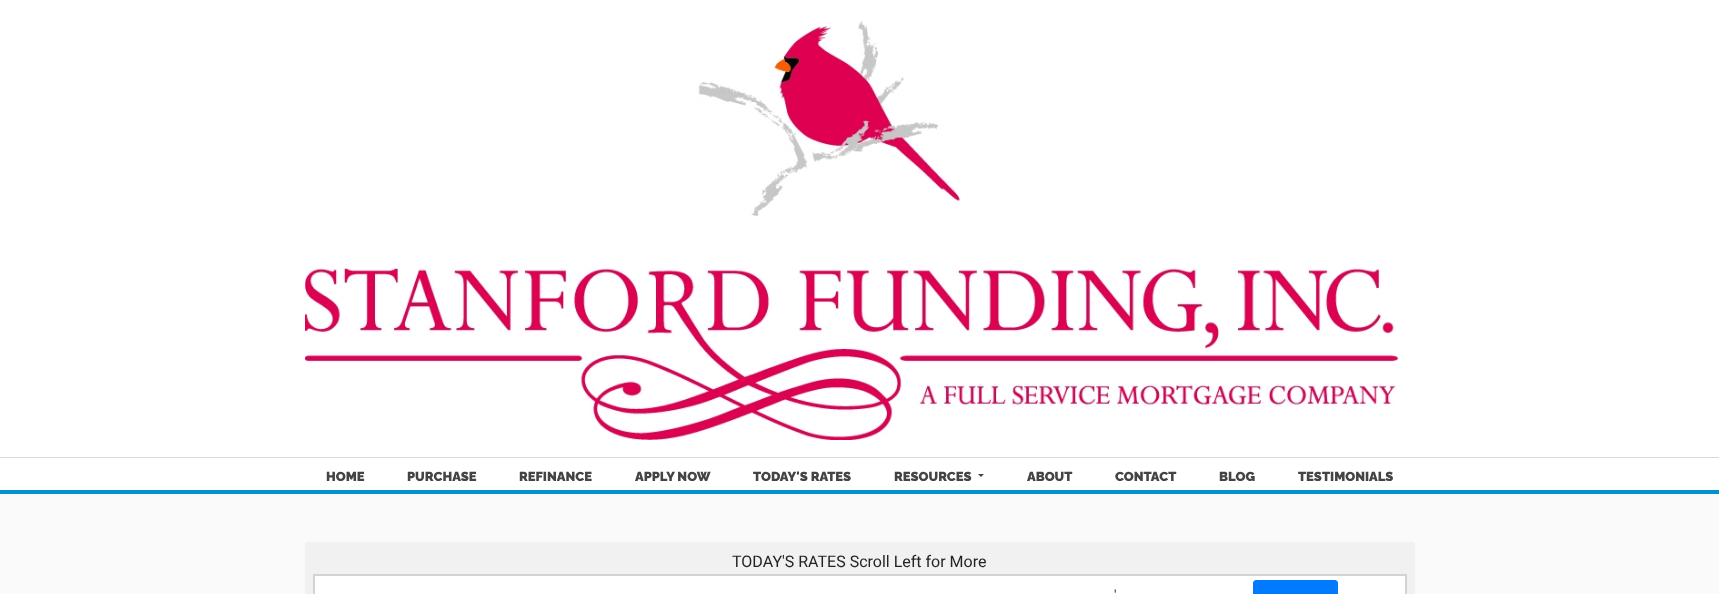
<!DOCTYPE html>
<meta charset="utf-8">
<style>body { margin: 0 } canvas { display: block }</style>
<canvas id="canvas" width="1719" height="594"></canvas>
<script type="module">
  const canvas = document.getElementById("canvas");
  const ctx = canvas.getContext("2d");
  ctx.miterLimit = 4;
  ctx.fontKerning = "normal";
  async function loadImage(src) {
    const img = new Image();
    img.src = src;
    await img.decode();
    return img;
  }

  ctx.fillStyle = "#ffffff";
  ctx.fillRect(0, 0, 1719, 594);
  ctx.drawImage(await loadImage("img1.png"), 305, 21, 1093, 419);
  ctx.fillStyle = "#d9d9d9";
  ctx.fillRect(0, 457, 1719, 1);
  ctx.font = "900 13px Raleway";
  ctx.fillStyle = "#444444";
  ctx.fillText("HOME", 326, 481);
  ctx.fillText("PURCHASE", 407, 481);
  ctx.fillText("REFINANCE", 519, 481);
  ctx.fillText("APPLY NOW", 635, 481);
  ctx.fillText("TODAY'S RATES", 753, 481);
  ctx.fillText("RESOURCES", 894, 481);
  ctx.beginPath();
  ctx.moveTo(978, 474);
  ctx.lineTo(984, 474);
  ctx.lineTo(981, 477);
  ctx.closePath();
  ctx.fill();
  ctx.fillText("ABOUT", 1027, 481);
  ctx.fillText("CONTACT", 1115, 481);
  ctx.fillText("BLOG", 1219, 481);
  ctx.fillText("TESTIMONIALS", 1298, 481);
  ctx.fillStyle = "#fafafa";
  ctx.fillRect(0, 494, 1719, 100);
  ctx.fillStyle = "#0093d0";
  ctx.fillRect(0, 490, 1719, 4);
  ctx.fillStyle = "#f1f1f1";
  ctx.fillRect(305, 542, 1110, 52);
  ctx.font = "16px Roboto";
  ctx.fillStyle = "#212529";
  ctx.fillText("TODAY'S RATES Scroll Left for More", 732, 567);
  ctx.fillStyle = "#ffffff";
  ctx.beginPath();
  ctx.rect(314, 575, 1092, 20);
  ctx.fill();
  ctx.strokeStyle = "#d3d3d3";
  ctx.lineWidth = 2;
  ctx.stroke();
  ctx.font = "14px Roboto";
  ctx.fillStyle = "#212529";
  ctx.fillText("'", 1114, 600);
  ctx.fillStyle = "#007bff";
  ctx.beginPath();
  ctx.roundRect(1253.5, 580.5, 84, 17, 2.5);
  ctx.fill();
  ctx.strokeStyle = "#007bff";
  ctx.lineWidth = 1;
  ctx.stroke();
</script>
